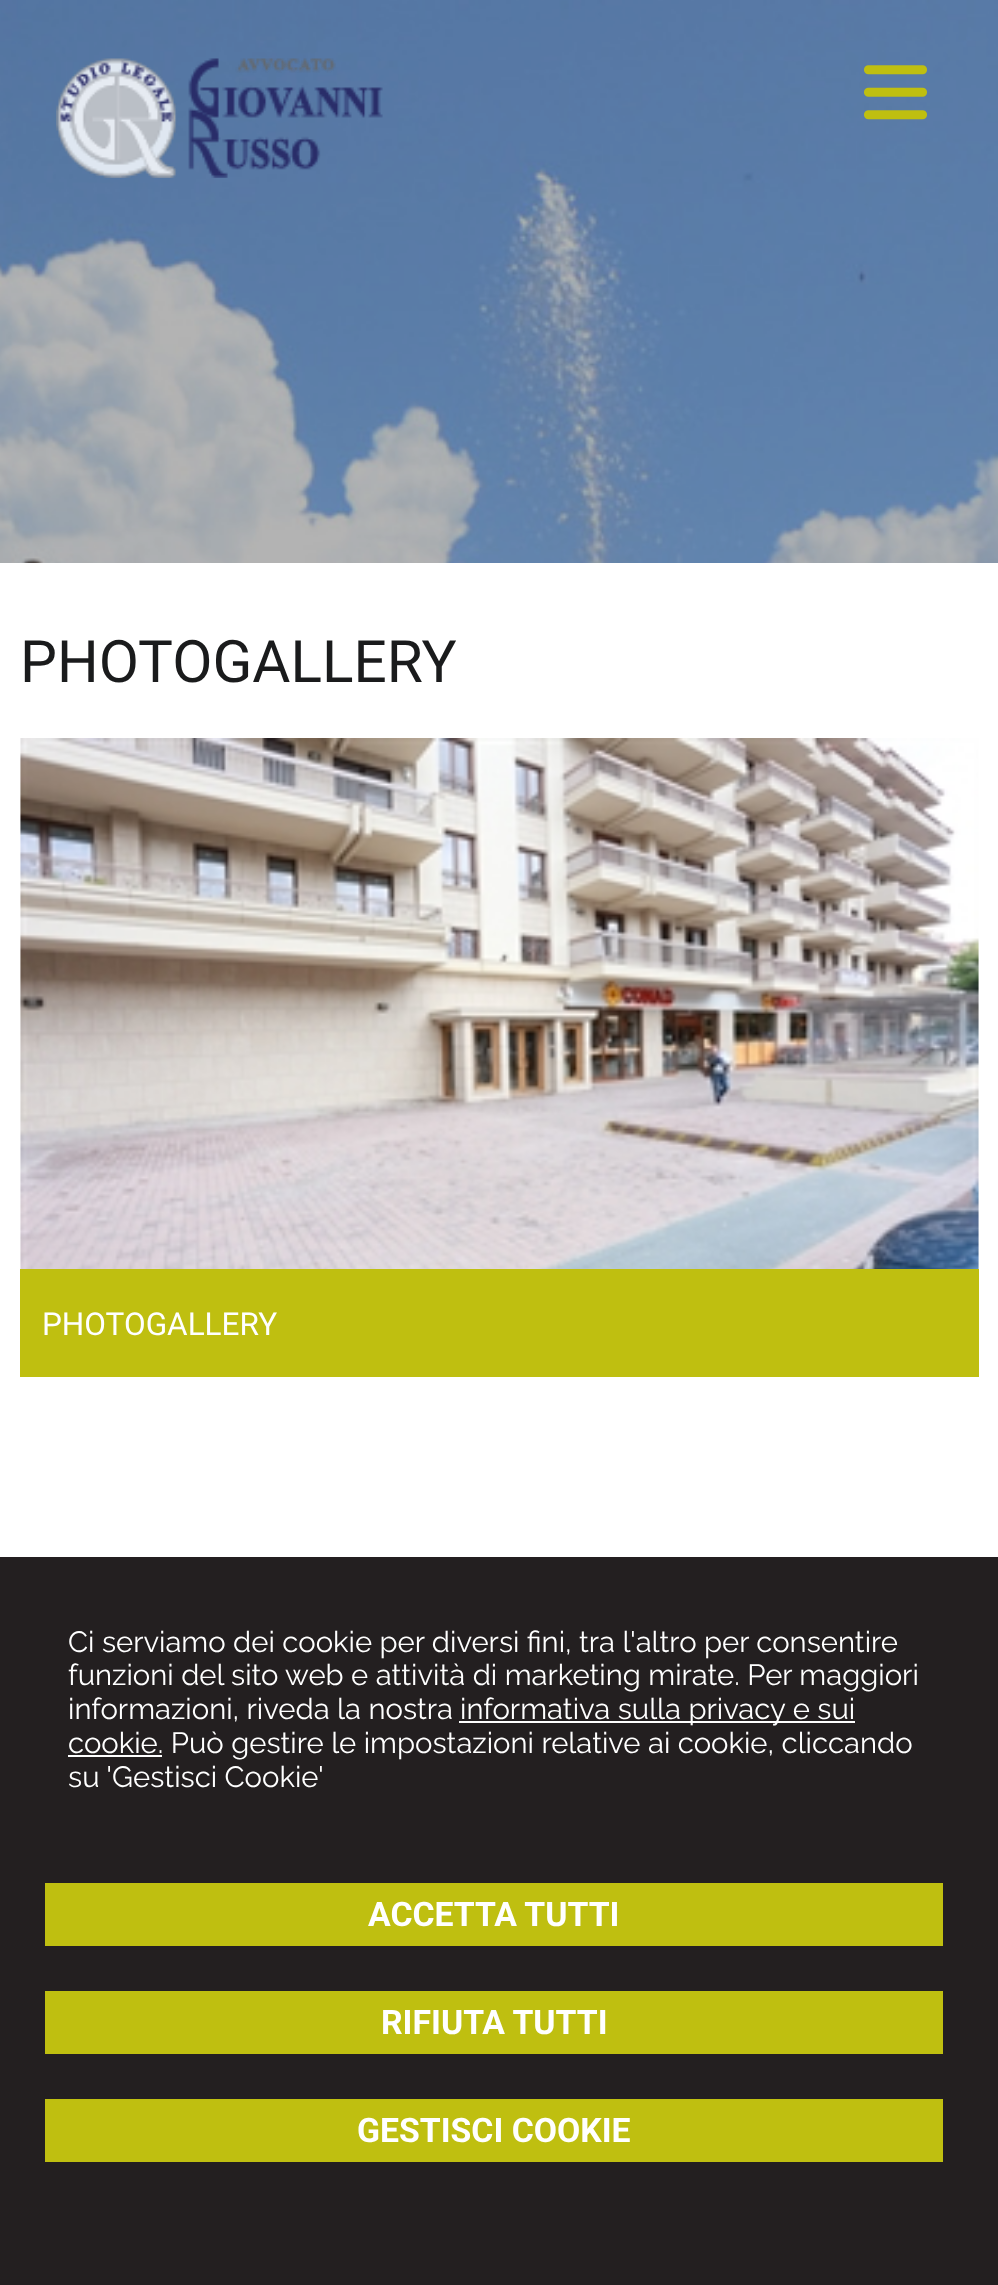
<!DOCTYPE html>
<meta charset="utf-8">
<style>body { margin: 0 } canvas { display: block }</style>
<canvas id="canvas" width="998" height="2285"></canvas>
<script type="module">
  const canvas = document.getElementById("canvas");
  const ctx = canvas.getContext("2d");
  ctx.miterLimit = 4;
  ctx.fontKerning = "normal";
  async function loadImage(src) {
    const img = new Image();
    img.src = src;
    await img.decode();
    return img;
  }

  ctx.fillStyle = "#ffffff";
  ctx.fillRect(0, 0, 998, 2285);
  ctx.drawImage(await loadImage("img1.png"), 0, 0, 998, 563);
  ctx.drawImage(await loadImage("img2.png"), 56, 58, 327, 120);
  ctx.drawImage(await loadImage("img3.png"), 864, 65, 63, 55);
  ctx.font = "58.5px Roboto";
  ctx.fillStyle = "#1a1b1c";
  ctx.fillText("PHOTOGALLERY", 20, 682);
  ctx.drawImage(await loadImage("img4.png"), 20, 738, 959, 531);
  ctx.fillStyle = "#bfbf10";
  ctx.fillRect(20, 1269, 959, 108);
  ctx.font = "31.5px Roboto";
  ctx.fillStyle = "#ffffff";
  ctx.fillText("PHOTOGALLERY", 42, 1335);
  ctx.fillStyle = "#231f20";
  ctx.fillRect(0, 1557, 998, 728);
  ctx.font = "29.25px Raleway";
  ctx.fillStyle = "#ffffff";
  ctx.fillText("Ci serviamo dei cookie per diversi fini, tra l'altro per consentire", 68, 1652);
  ctx.fillText("funzioni del sito web e attività di marketing mirate. Per maggiori", 68, 1685);
  ctx.fillText("informazioni, riveda la nostra", 68, 1719);
  ctx.fillRect(459, 1721, 396, 2);
  ctx.fillText("informativa sulla privacy e sui", 460, 1719);
  ctx.fillRect(68, 1755, 94, 2);
  ctx.fillText("cookie. Può gestire le impostazioni relative ai cookie, cliccando", 68, 1753);
  ctx.fillText("su 'Gestisci Cookie'", 68, 1787);
  ctx.fillStyle = "#bfbf10";
  ctx.fillRect(45, 1883, 898, 63);
  ctx.font = "bold 33.75px Roboto";
  ctx.fillStyle = "#ffffff";
  ctx.fillText("ACCETTA TUTTI", 368, 1926);
  ctx.fillStyle = "#bfbf10";
  ctx.fillRect(45, 1991, 898, 63);
  ctx.fillStyle = "#ffffff";
  ctx.fillText("RIFIUTA TUTTI", 381, 2034);
  ctx.fillStyle = "#bfbf10";
  ctx.fillRect(45, 2099, 898, 63);
  ctx.fillStyle = "#ffffff";
  ctx.fillText("GESTISCI COOKIE", 357, 2142);
</script>
